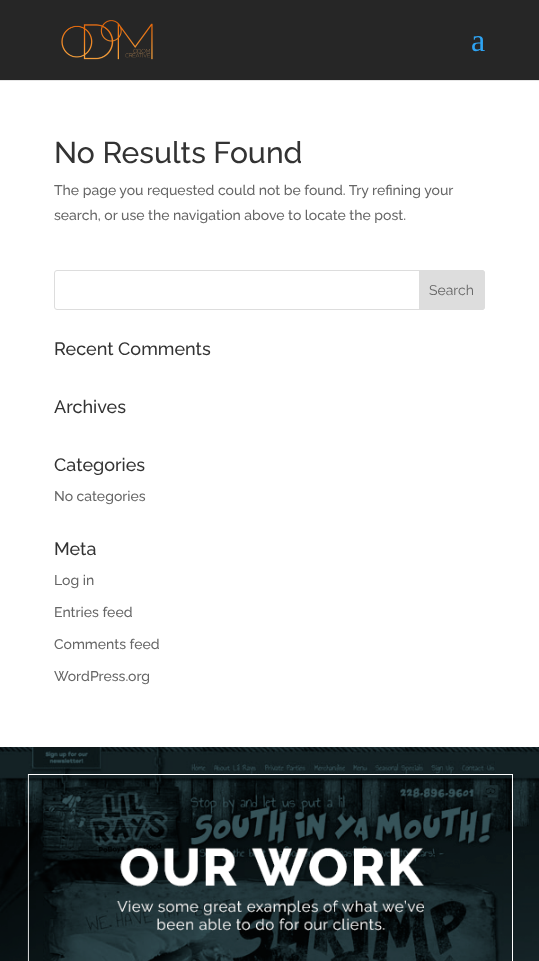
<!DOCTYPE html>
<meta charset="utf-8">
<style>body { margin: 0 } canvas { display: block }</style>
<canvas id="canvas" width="539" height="961"></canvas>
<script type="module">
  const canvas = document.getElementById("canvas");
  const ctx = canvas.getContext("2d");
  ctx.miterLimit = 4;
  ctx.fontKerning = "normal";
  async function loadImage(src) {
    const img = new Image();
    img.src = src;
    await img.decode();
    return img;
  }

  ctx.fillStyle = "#ffffff";
  ctx.fillRect(0, 0, 539, 961);
  ctx.fillStyle = "#e6e6e6";
  ctx.fillRect(0, 80, 539, 1);
  ctx.fillStyle = "#262626";
  ctx.fillRect(0, 0, 539, 80);
  ctx.drawImage(await loadImage("img1.png"), 61, 20, 92, 40);
  ctx.font = "32px Liberation Serif";
  ctx.fillStyle = "#2ea3f2";
  ctx.fillText("a", 471, 51);
  ctx.font = "500 30px Raleway";
  ctx.fillStyle = "#333333";
  ctx.fillText("No Results Found", 54, 163);
  ctx.font = "500 14px Raleway";
  ctx.fillStyle = "#666666";
  ctx.fillText("The page you requested could not be found. Try refining your", 54, 195);
  ctx.fillText("search, or use the navigation above to locate the post.", 54, 220);
  ctx.beginPath();
  ctx.roundRect(54.5, 270.5, 430, 39, 2.5);
  ctx.strokeStyle = "#dddddd";
  ctx.stroke();
  ctx.fillStyle = "#dddddd";
  ctx.beginPath();
  ctx.roundRect(419.5, 270.5, 65, 39, [0, 2.5, 2.5, 0]);
  ctx.fill();
  ctx.stroke();
  ctx.font = "14px Raleway";
  ctx.fillStyle = "#666666";
  ctx.fillText("Search", 429, 295);
  ctx.font = "500 18px Raleway";
  ctx.fillStyle = "#333333";
  ctx.fillText("Recent Comments", 54, 355);
  ctx.fillText("Archives", 54, 413);
  ctx.fillText("Categories", 54, 471);
  ctx.font = "500 14px Raleway";
  ctx.fillStyle = "#666666";
  ctx.fillText("No categories", 54, 501);
  ctx.font = "500 18px Raleway";
  ctx.fillStyle = "#333333";
  ctx.fillText("Meta", 54, 555);
  ctx.font = "500 14px Raleway";
  ctx.fillStyle = "#666666";
  ctx.fillText("Log in", 54, 585);
  ctx.fillText("Entries feed", 54, 617);
  ctx.fillText("Comments feed", 54, 649);
  ctx.fillText("WordPress.org", 54, 681);
  ctx.drawImage(await loadImage("img2.png"), 0, 747, 539, 214);
</script>
